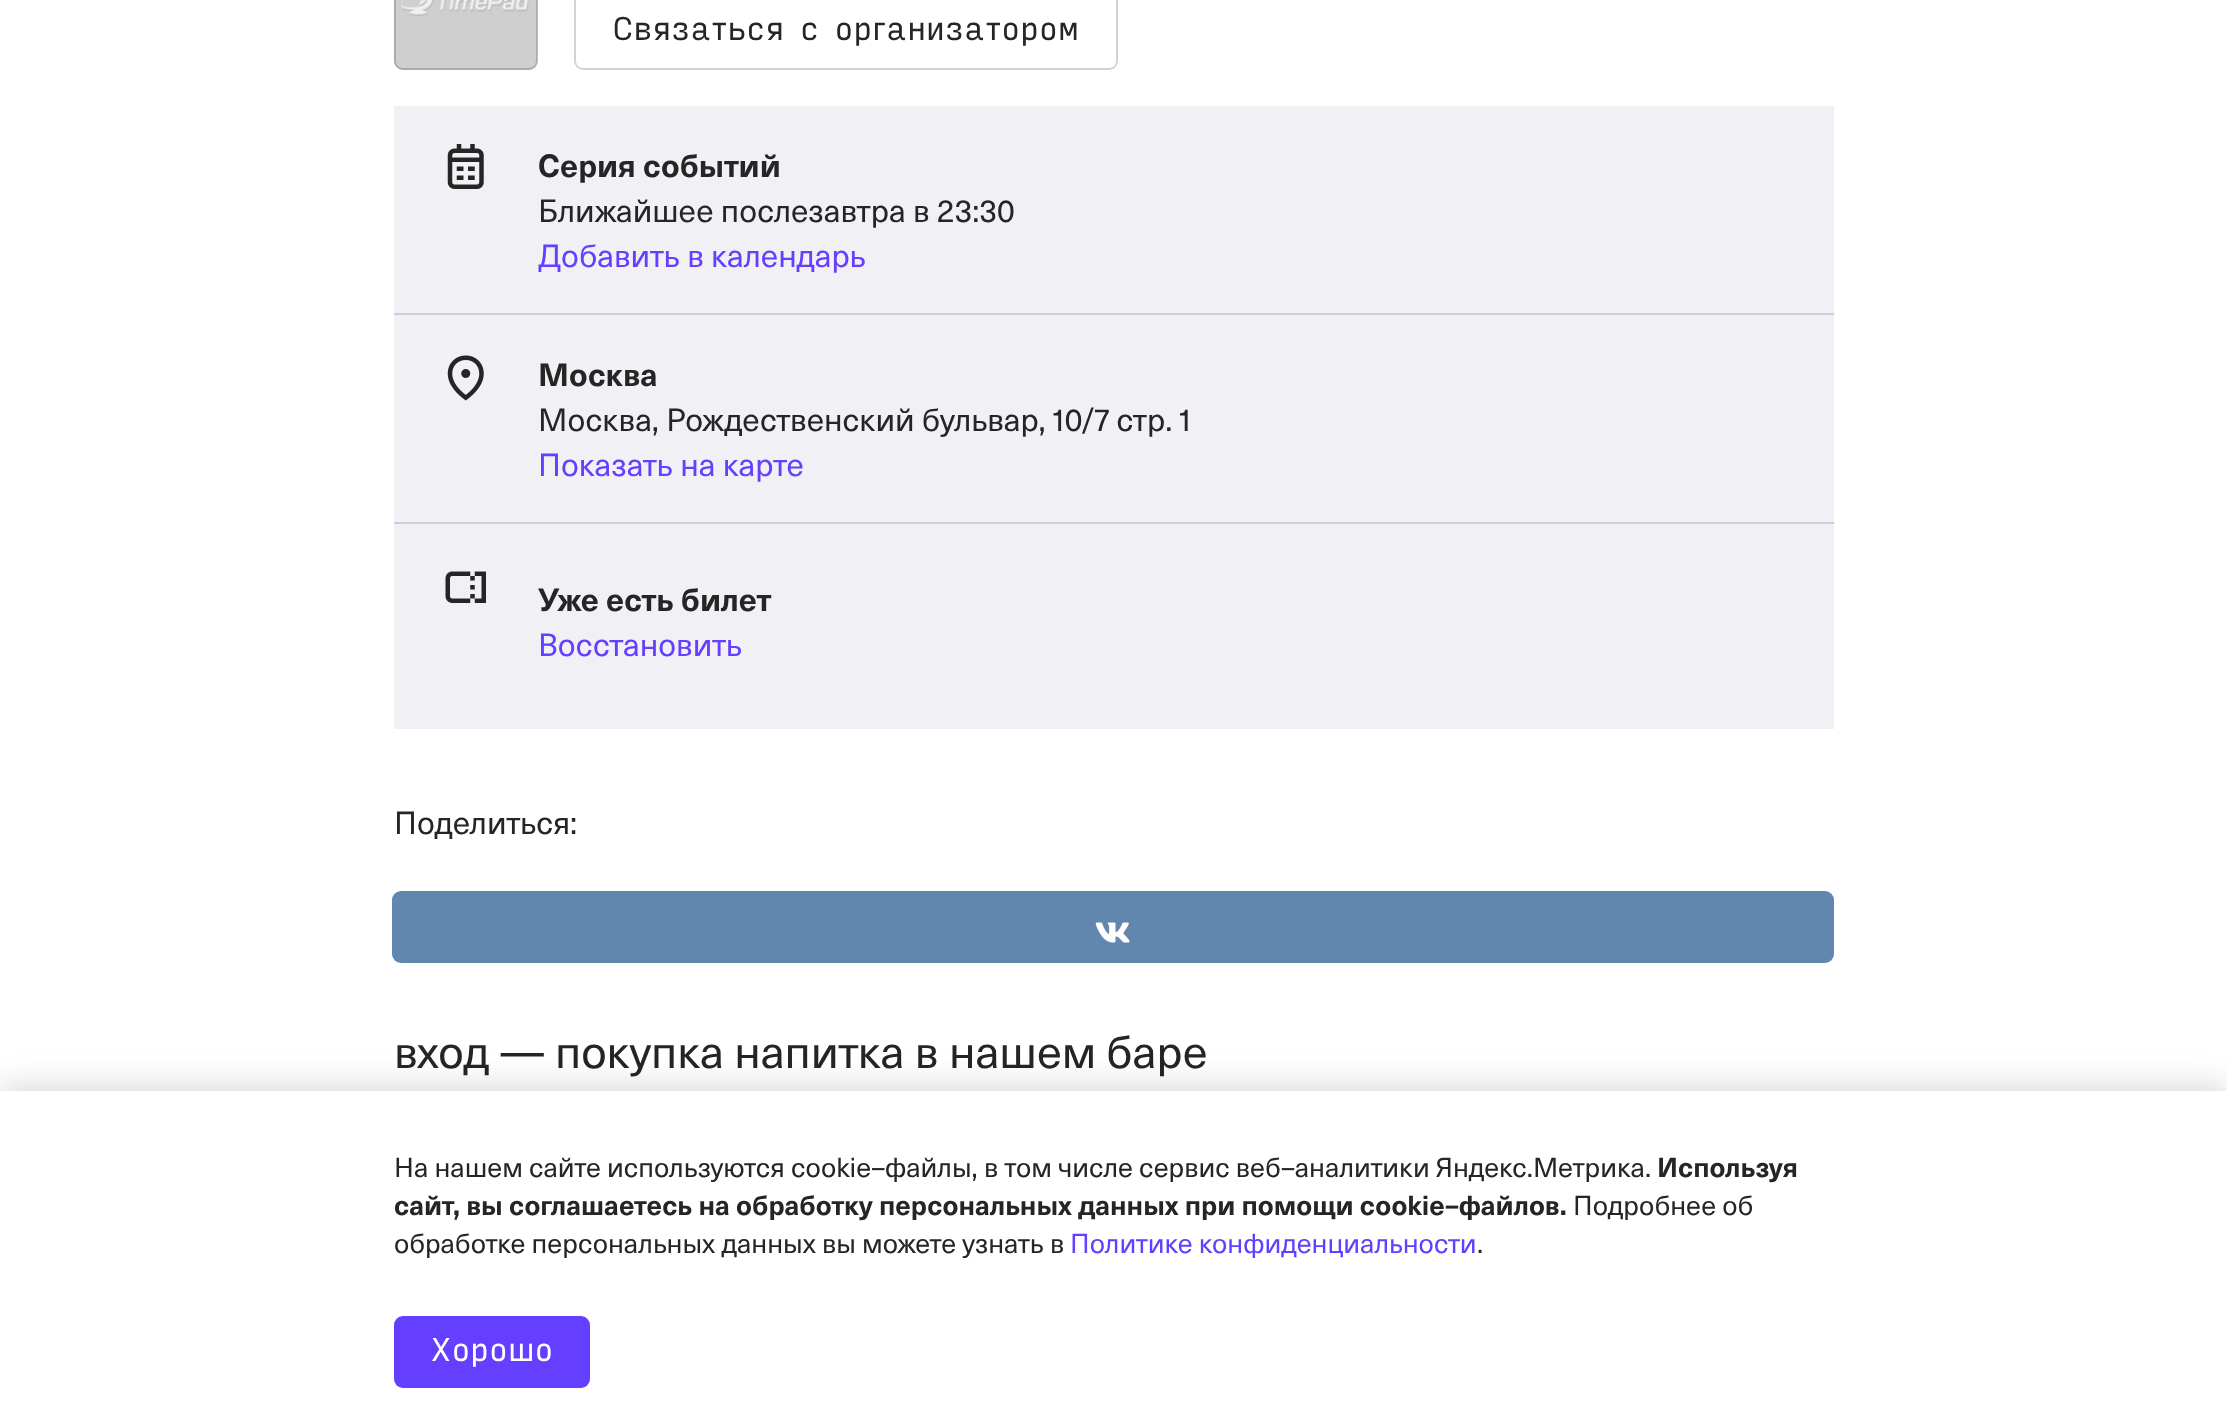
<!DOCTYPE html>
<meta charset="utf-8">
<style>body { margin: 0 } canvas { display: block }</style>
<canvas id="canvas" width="2227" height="1423"></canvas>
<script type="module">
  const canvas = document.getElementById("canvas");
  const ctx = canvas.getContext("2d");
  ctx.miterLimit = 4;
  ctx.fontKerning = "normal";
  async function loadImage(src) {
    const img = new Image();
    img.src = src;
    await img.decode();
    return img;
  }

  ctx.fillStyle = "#ffffff";
  ctx.fillRect(0, 0, 2227, 1423);
  ctx.drawImage(await loadImage("img1.png"), 394, 0, 144, 70);
  ctx.beginPath();
  ctx.roundRect(395, -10, 142, 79, 8);
  ctx.strokeStyle = "rgba(37, 37, 37, 0.2)";
  ctx.lineWidth = 2;
  ctx.stroke();
  ctx.beginPath();
  ctx.roundRect(575, -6, 542, 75, 8);
  ctx.strokeStyle = "#d3d3d3";
  ctx.stroke();
  ctx.font = "31.5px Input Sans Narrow";
  ctx.fillStyle = "#252525";
  ctx.fillText("Связаться с организатором", 612, 40);
  ctx.fillStyle = "#f1f0f5";
  ctx.fillRect(394, 106, 1440, 207);
  ctx.drawImage(await loadImage("img2.png"), 447, 144, 37, 45);
  ctx.font = "bold 31.5px 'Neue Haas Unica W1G'";
  ctx.fillStyle = "#252525";
  ctx.fillText("Серия событий", 538, 177);
  ctx.font = "31.5px 'Neue Haas Unica W1G'";
  ctx.fillText("Ближайшее послезавтра в 23:30", 538, 222);
  ctx.fillStyle = "#643fff";
  ctx.fillText("Добавить в календарь", 538, 267);
  ctx.fillStyle = "#f1f0f5";
  ctx.fillRect(394, 315, 1440, 207);
  ctx.fillStyle = "#cecdde";
  ctx.fillRect(394, 313, 1440, 2);
  ctx.drawImage(await loadImage("img3.png"), 447, 355, 37, 46);
  ctx.font = "bold 31.5px 'Neue Haas Unica W1G'";
  ctx.fillStyle = "#252525";
  ctx.fillText("Москва", 538, 386);
  ctx.font = "31.5px 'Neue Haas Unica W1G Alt'";
  ctx.fillText("Москва, Рождественский бульвар, 10/7 стр. 1", 538, 431);
  ctx.font = "31.5px 'Neue Haas Unica W1G'";
  ctx.fillStyle = "#643fff";
  ctx.fillText("Показать на карте", 538, 476);
  ctx.fillStyle = "#f1f0f5";
  ctx.fillRect(394, 524, 1440, 205);
  ctx.fillStyle = "#cecdde";
  ctx.fillRect(394, 522, 1440, 2);
  ctx.drawImage(await loadImage("img4.png"), 445, 571, 41, 32);
  ctx.font = "bold 31.5px 'Neue Haas Unica W1G'";
  ctx.fillStyle = "#252525";
  ctx.fillText("Уже есть билет", 538, 611);
  ctx.font = "31.5px 'Neue Haas Unica W1G'";
  ctx.fillStyle = "#643fff";
  ctx.fillText("Восстановить", 538, 656);
  ctx.fillStyle = "#252525";
  ctx.fillText("Поделиться:", 394, 834);
  ctx.fillStyle = "#6287ae";
  ctx.beginPath();
  ctx.roundRect(392, 891, 1442, 72, 9);
  ctx.fill();
  ctx.drawImage(await loadImage("img5.png"), 1095, 922, 35, 21);
  ctx.font = "45px 'Neue Haas Unica W1G'";
  ctx.fillStyle = "#252525";
  ctx.fillText("вход — покупка напитка в нашем баре", 394, 1068);
  ctx.fillStyle = "rgba(0, 0, 0, 0.2)";
  ctx.filter = "blur(18px)";
  ctx.beginPath();
  ctx.rect(0, 1091, 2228, 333);
  ctx.fill();
  ctx.filter = "none";
  ctx.fillStyle = "#ffffff";
  ctx.fillRect(0, 1091, 2227, 332);
  ctx.font = "27px 'Neue Haas Unica W1G'";
  ctx.fillStyle = "#252525";
  ctx.fillText("На нашем сайте используются cookie–файлы, в том числе сервис веб–аналитики Яндекс.Метрика.", 394, 1177);
  ctx.font = "bold 27px 'Neue Haas Unica W1G'";
  ctx.fillText("Используя", 1657, 1177);
  ctx.fillText("сайт, вы соглашаетесь на обработку персональных данных при помощи cookie–файлов.", 394, 1215);
  ctx.font = "27px 'Neue Haas Unica W1G'";
  ctx.fillText("Подробнее об", 1573, 1215);
  ctx.fillText("обработке персональных данных вы можете узнать в", 394, 1253);
  ctx.fillStyle = "#643fff";
  ctx.fillText("Политике конфиденциальности", 1070, 1253);
  ctx.fillStyle = "#252525";
  ctx.fillText(".", 1477, 1253);
  ctx.fillStyle = "#643fff";
  ctx.beginPath();
  ctx.roundRect(394, 1316, 196, 72, 9);
  ctx.fill();
  ctx.font = "31.5px Input Sans Narrow";
  ctx.fillStyle = "#ffffff";
  ctx.fillText("Хорошо", 430, 1361);
</script>
